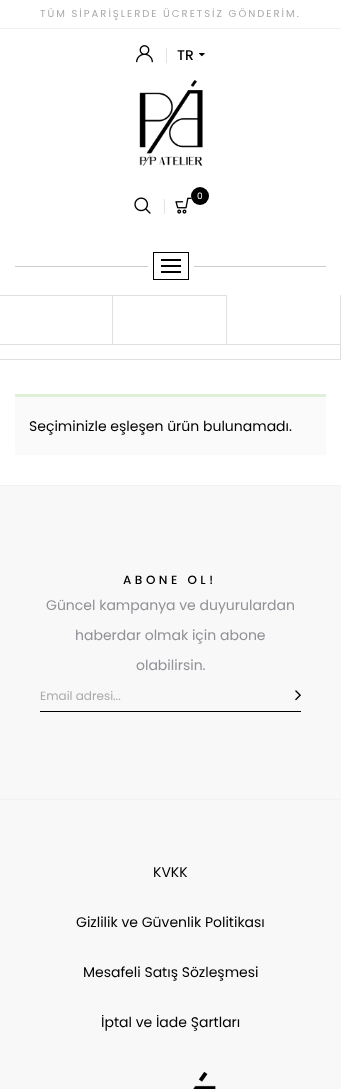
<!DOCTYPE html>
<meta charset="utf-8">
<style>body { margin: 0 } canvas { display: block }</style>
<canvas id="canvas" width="341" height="1089"></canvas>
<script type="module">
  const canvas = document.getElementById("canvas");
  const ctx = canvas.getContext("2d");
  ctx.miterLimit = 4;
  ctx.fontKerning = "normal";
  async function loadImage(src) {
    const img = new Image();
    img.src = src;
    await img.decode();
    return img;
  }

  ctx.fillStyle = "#ffffff";
  ctx.fillRect(0, 0, 341, 1089);
  ctx.fillStyle = "#efefef";
  ctx.fillRect(0, 28, 341, 1);
  ctx.letterSpacing = "2px";
  ctx.font = "10px Poppins";
  ctx.fillStyle = "#aaaaaa";
  ctx.fillText("TÜM SİPARİŞLERDE ÜCRETSİZ GÖNDERİM.", 40, 17);
  ctx.drawImage(await loadImage("img1.png"), 136, 45, 17, 18);
  ctx.fillStyle = "#e3e3e3";
  ctx.fillRect(166, 48, 1, 15);
  ctx.letterSpacing = "0px";
  ctx.font = "500 14px Poppins";
  ctx.fillStyle = "#000000";
  ctx.fillText("TR", 177, 60);
  ctx.drawImage(await loadImage("img2.png"), 199, 53, 6, 4);
  ctx.drawImage(await loadImage("img3.png"), 139, 80, 64, 86);
  ctx.drawImage(await loadImage("img4.png"), 175, 197, 17, 17);
  ctx.beginPath();
  ctx.arc(200, 196, 9, 0, Math.PI * 2);
  ctx.fill();
  ctx.font = "9px Poppins";
  ctx.fillStyle = "#ffffff";
  ctx.fillText("0", 197, 199);
  ctx.fillStyle = "#e3e3e3";
  ctx.fillRect(164, 199, 1, 15);
  ctx.drawImage(await loadImage("img5.png"), 134, 197, 17, 17);
  ctx.fillStyle = "#cccccc";
  ctx.fillRect(15, 266, 133, 1);
  ctx.strokeStyle = "#000000";
  ctx.strokeRect(153.5, 252.5, 35, 27);
  ctx.fillStyle = "#000000";
  ctx.fillRect(161, 259, 20, 2);
  ctx.fillRect(161, 265, 20, 2);
  ctx.fillRect(161, 271, 20, 2);
  ctx.fillStyle = "#cccccc";
  ctx.fillRect(194, 266, 132, 1);
  ctx.fillStyle = "#e0e0e0";
  ctx.beginPath();
  ctx.moveTo(341, 295);
  ctx.lineTo(341, 360);
  ctx.lineTo(340, 359);
  ctx.lineTo(340, 295);
  ctx.closePath();
  ctx.fill();
  ctx.fillStyle = "rgba(0, 0, 0, 0.12)";
  ctx.beginPath();
  ctx.moveTo(341, 360);
  ctx.lineTo(0, 360);
  ctx.lineTo(0, 359);
  ctx.lineTo(340, 359);
  ctx.closePath();
  ctx.fill();
  ctx.fillStyle = "#e0e0e0";
  ctx.beginPath();
  ctx.moveTo(0, 295);
  ctx.lineTo(113, 295);
  ctx.lineTo(112, 296);
  ctx.lineTo(0, 296);
  ctx.closePath();
  ctx.fill();
  ctx.fillStyle = "rgba(0, 0, 0, 0.12)";
  ctx.beginPath();
  ctx.moveTo(113, 295);
  ctx.lineTo(113, 344);
  ctx.lineTo(112, 344);
  ctx.lineTo(112, 296);
  ctx.closePath();
  ctx.fill();
  ctx.fillStyle = "#e0e0e0";
  ctx.beginPath();
  ctx.moveTo(113, 295);
  ctx.lineTo(227, 295);
  ctx.lineTo(226, 296);
  ctx.lineTo(113, 296);
  ctx.closePath();
  ctx.fill();
  ctx.fillStyle = "rgba(0, 0, 0, 0.12)";
  ctx.beginPath();
  ctx.moveTo(227, 295);
  ctx.lineTo(227, 344);
  ctx.lineTo(226, 344);
  ctx.lineTo(226, 296);
  ctx.closePath();
  ctx.fill();
  ctx.fillStyle = "#e0e0e0";
  ctx.fillRect(0, 344, 340, 1);
  ctx.fillStyle = "#fafafa";
  ctx.fillRect(15, 397, 311, 58);
  ctx.fillStyle = "#dff0d8";
  ctx.fillRect(15, 394, 311, 3);
  ctx.font = "14px Poppins";
  ctx.fillStyle = "#000000";
  ctx.fillText("Seçiminizle eşleşen ürün bulunamadı.", 29, 431);
  ctx.fillStyle = "#f2f2f2";
  ctx.fillRect(0, 485, 341, 1);
  ctx.fillStyle = "#f8f8f8";
  ctx.fillRect(0, 486, 341, 603);
  ctx.fillStyle = "#f2f2f2";
  ctx.fillRect(0, 799, 341, 1);
  ctx.letterSpacing = "3.5px";
  ctx.font = "500 12px Poppins";
  ctx.fillStyle = "#000000";
  ctx.fillText("ABONE OL!", 123, 584);
  ctx.letterSpacing = "0px";
  ctx.font = "14px Poppins";
  ctx.fillStyle = "#909097";
  ctx.fillText("Güncel kampanya ve duyurulardan", 46, 610);
  ctx.fillText("haberdar olmak için abone", 75, 640);
  ctx.fillText("olabilirsin.", 136, 670);
  ctx.fillStyle = "#000000";
  ctx.fillRect(40, 711, 261, 1);
  ctx.font = "12px Poppins";
  ctx.fillStyle = "#aaaaaa";
  ctx.fillText("Email adresi...", 40, 700);
  ctx.drawImage(await loadImage("img6.png"), 295, 690, 6, 11);
  ctx.font = "14px Poppins";
  ctx.fillStyle = "#000000";
  ctx.fillText("KVKK", 153, 877);
  ctx.fillText("Gizlilik ve Güvenlik Politikası", 76, 927);
  ctx.fillText("Mesafeli Satış Sözleşmesi", 83, 977);
  ctx.fillText("İptal ve İade Şartları", 101, 1027);
  ctx.drawImage(await loadImage("img7.png"), 193, 1072, 23, 17);
</script>
